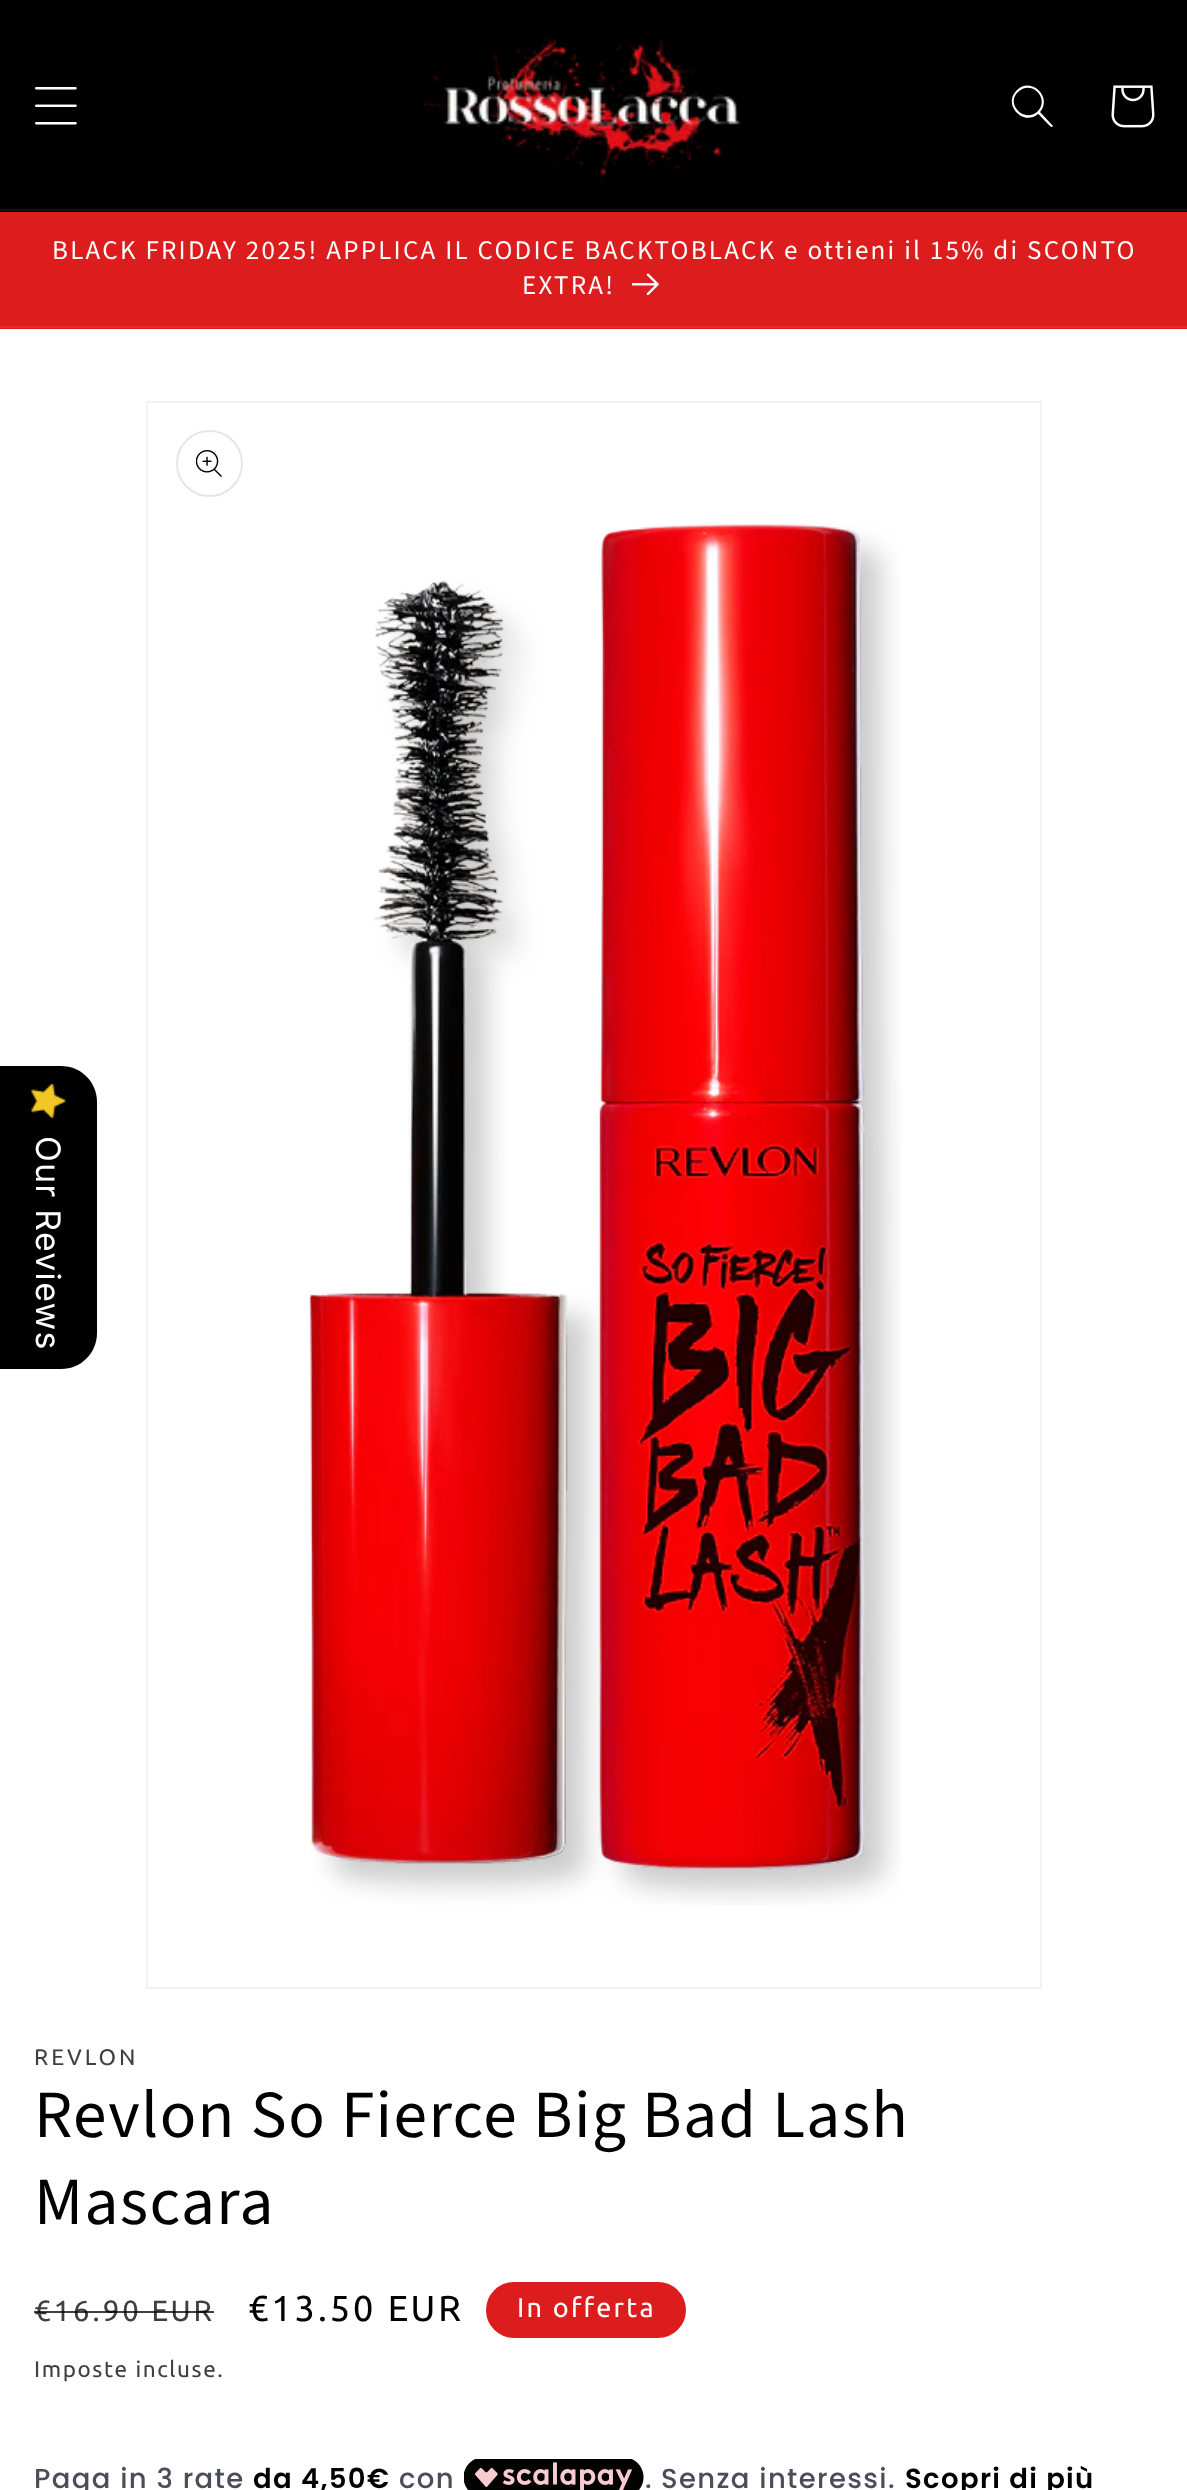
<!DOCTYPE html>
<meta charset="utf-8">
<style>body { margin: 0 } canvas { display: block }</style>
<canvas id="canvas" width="1187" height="2490"></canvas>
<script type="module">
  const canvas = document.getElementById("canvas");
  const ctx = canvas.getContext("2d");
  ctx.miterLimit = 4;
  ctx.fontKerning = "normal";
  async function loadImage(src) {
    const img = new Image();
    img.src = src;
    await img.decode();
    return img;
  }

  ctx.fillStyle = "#ffffff";
  ctx.fillRect(0, 0, 1187, 2490);
  ctx.fillStyle = "#000000";
  ctx.fillRect(0, 0, 1187, 212);
  ctx.fillStyle = "#141414";
  ctx.fillRect(0, 209, 1187, 2);
  ctx.drawImage(await loadImage("img1.png"), 35, 87, 42, 38);
  ctx.drawImage(await loadImage("img2.png"), 421, 36, 320, 148);
  ctx.fillStyle = "#ffffff";
  ctx.beginPath();
  ctx.moveTo(1038, 111);
  ctx.bezierCurveTo(1025, 124, 1005, 104, 1018, 92);
  ctx.bezierCurveTo(1031, 79, 1050, 98, 1038, 111);
  ctx.closePath();
  ctx.moveTo(1038, 114);
  ctx.bezierCurveTo(1023, 127, 1002, 104, 1017, 90);
  ctx.bezierCurveTo(1031, 76, 1053, 97, 1040, 112);
  ctx.lineTo(1053, 126);
  ctx.lineTo(1052, 127);
  ctx.bezierCurveTo(1051, 128, 1040, 115, 1038, 114);
  ctx.closePath();
  ctx.fill("evenodd");
  ctx.drawImage(await loadImage("img3.png"), 1111, 85, 44, 43);
  ctx.fillStyle = "#dd1d1d";
  ctx.fillRect(0, 212, 1187, 117);
  ctx.fillStyle = "#e02f2f";
  ctx.fillRect(0, 326, 1187, 2);
  ctx.letterSpacing = "2.25px";
  ctx.font = "27px Source Sans Pro";
  ctx.fillStyle = "#ffffff";
  ctx.fillText("BLACK FRIDAY 2025! APPLICA IL CODICE BACKTOBLACK e ottieni il 15% di SCONTO", 52, 259);
  ctx.fillText("EXTRA!", 522, 294);
  ctx.drawImage(await loadImage("img4.png"), 632, 273, 27, 23);
  ctx.fillStyle = "#000000";
  ctx.beginPath();
  ctx.moveTo(97, 1102);
  ctx.lineTo(97, 1333);
  ctx.bezierCurveTo(97, 1353, 81, 1369, 61, 1369);
  ctx.lineTo(0, 1369);
  ctx.lineTo(0, 1066);
  ctx.lineTo(61, 1066);
  ctx.bezierCurveTo(81, 1066, 97, 1082, 97, 1102);
  ctx.closePath();
  ctx.fill();
  ctx.drawImage(await loadImage("img5.png"), 31, 1084, 35, 34);
  ctx.letterSpacing = "1.35px";
  ctx.font = "33.75px Inter";
  ctx.fillStyle = "#ffffff";
  ctx.save();
  ctx.translate(36, 1136);
  ctx.rotate(90 * Math.PI / 180);
  ctx.fillText("Our Reviews", 0, 0);
  ctx.restore();
  ctx.strokeStyle = "#f2f2f2";
  ctx.lineWidth = 2;
  ctx.strokeRect(147, 402, 894, 1586);
  ctx.beginPath();
  ctx.arc(209.5, 463.5, 32.5, 0, Math.PI * 2);
  ctx.strokeStyle = "#e6e6e6";
  ctx.stroke();
  ctx.drawImage(await loadImage("img6.png"), 196, 450, 26, 27);
  ctx.drawImage(await loadImage("img7.png"), 309, 524, 592, 1381);
  ctx.letterSpacing = "3px";
  ctx.font = "22.5px Ubuntu";
  ctx.fillStyle = "#404040";
  ctx.fillText("REVLON", 34, 2065);
  ctx.letterSpacing = "1.35px";
  ctx.font = "67.5px Source Sans Pro";
  ctx.fillStyle = "#000000";
  ctx.fillText("Revlon So Fierce Big Bad Lash", 34, 2137);
  ctx.fillText("Mascara", 34, 2224);
  ctx.letterSpacing = "3px";
  ctx.font = "29.25px Ubuntu";
  ctx.fillStyle = "#404040";
  ctx.fillText("€16.90 EUR", 34, 2321);
  ctx.fillStyle = "rgba(0, 0, 0, 0.75)";
  ctx.fillRect(34, 2311, 180, 2);
  ctx.font = "36px Ubuntu";
  ctx.fillStyle = "#000000";
  ctx.fillText("€13.50 EUR", 248, 2321);
  ctx.fillStyle = "#dd1d1d";
  ctx.beginPath();
  ctx.roundRect(487, 2283, 198, 54, 27);
  ctx.fill();
  ctx.strokeStyle = "#dd1d1d";
  ctx.stroke();
  ctx.letterSpacing = "2.25px";
  ctx.font = "27px Ubuntu";
  ctx.fillStyle = "#ffffff";
  ctx.fillText("In offerta", 517, 2317);
  ctx.letterSpacing = "1.6px";
  ctx.font = "22.5px Ubuntu";
  ctx.fillStyle = "#404040";
  ctx.fillText("Imposte incluse.", 34, 2377);
  ctx.letterSpacing = "1.35px";
  ctx.font = "500 27.5px Poppins";
  ctx.fillStyle = "#4a4d5a";
  ctx.fillText("Paga in 3 rate", 34, 2488);
  ctx.font = "600 27.5px Poppins";
  ctx.fillStyle = "#000000";
  ctx.fillText("da 4,50€", 253, 2488);
  ctx.font = "500 27.5px Poppins";
  ctx.fillStyle = "#4a4d5a";
  ctx.fillText("con", 399, 2488);
  ctx.drawImage(await loadImage("img8.png"), 464, 2459, 180, 31);
  ctx.fillText(".", 645, 2488);
  ctx.fillText("Senza interessi.", 661, 2488);
  ctx.font = "600 27.5px Poppins";
  ctx.fillStyle = "#000000";
  ctx.fillText("Scopri di più", 905, 2488);
</script>
